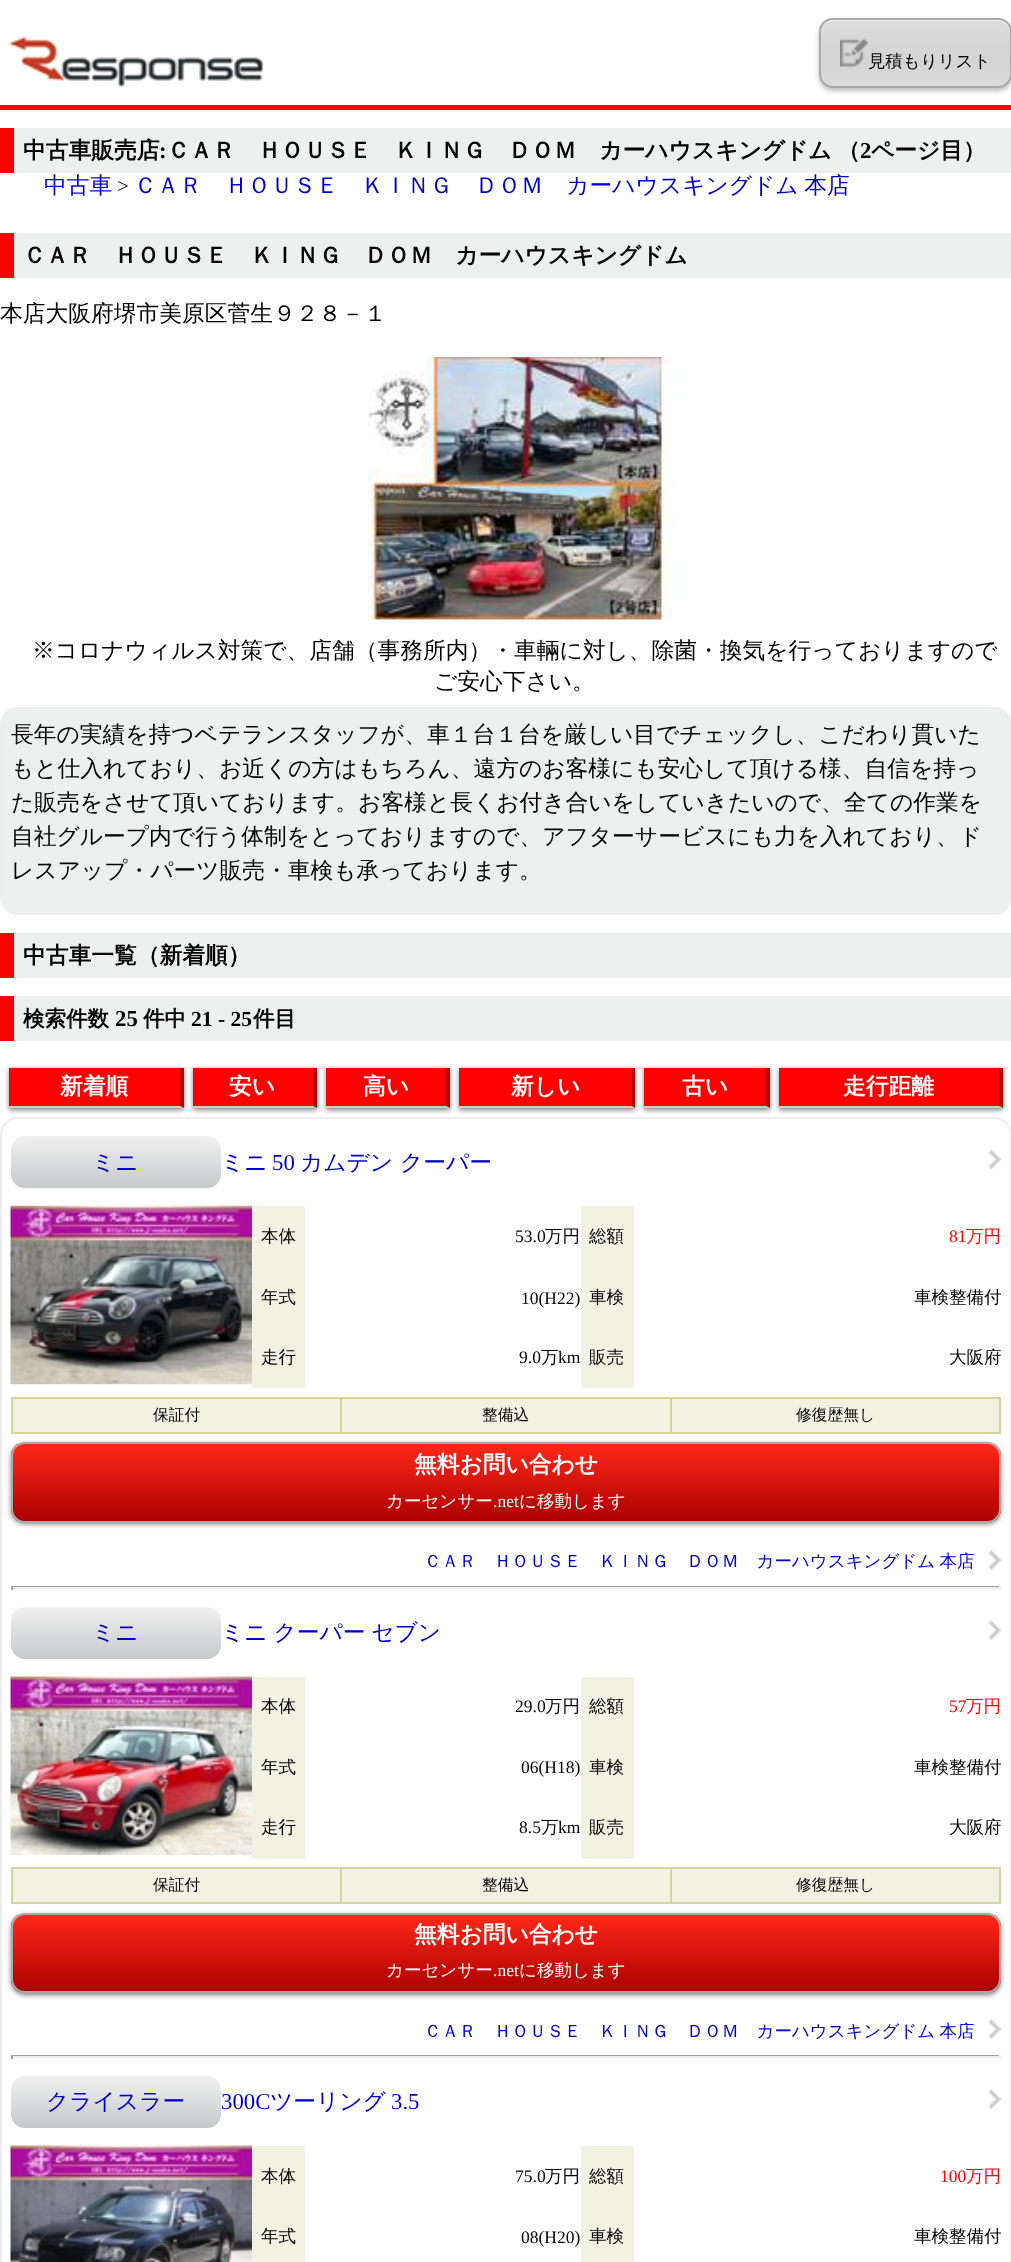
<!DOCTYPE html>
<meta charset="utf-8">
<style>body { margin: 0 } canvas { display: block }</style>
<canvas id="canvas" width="1011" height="2262"></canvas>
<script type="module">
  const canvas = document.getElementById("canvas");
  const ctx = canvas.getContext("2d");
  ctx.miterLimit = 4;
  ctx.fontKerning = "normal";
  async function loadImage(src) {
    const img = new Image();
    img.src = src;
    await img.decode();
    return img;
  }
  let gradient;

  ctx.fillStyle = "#ffffff";
  ctx.fillRect(0, 0, 1011, 2262);
  ctx.fillStyle = "#ff0000";
  ctx.fillRect(0, 105, 1011, 5);
  ctx.drawImage(await loadImage("img1.png"), 8, 36, 256, 52);
  ctx.fillStyle = "rgba(0, 0, 0, 0.25)";
  ctx.filter = "blur(2.5px)";
  ctx.beginPath();
  ctx.roundRect(819, 21, 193, 70, 14);
  ctx.fill();
  ctx.filter = "none";
  ctx.save();
  ctx.beginPath();
  ctx.roundRect(819, 18, 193, 70, 14);
  ctx.clip();
  gradient = ctx.createLinearGradient(915, 19, 915, 86);
  gradient.addColorStop(0, "#dcdcdc");
  gradient.addColorStop(0.64, "#d4d4d4");
  gradient.addColorStop(0.99, "#dbdbdb");
  ctx.fillStyle = gradient;
  ctx.fillRect(819, 19, 192, 67);
  ctx.restore();
  ctx.fillStyle = "#f4f4f4";
  ctx.beginPath();
  ctx.moveTo(833, 21);
  ctx.lineTo(998, 21);
  ctx.bezierCurveTo(1004, 21, 1010, 26, 1010, 33);
  ctx.lineTo(1010, 31);
  ctx.bezierCurveTo(1010, 24, 1005, 19, 998, 19);
  ctx.lineTo(833, 19);
  ctx.bezierCurveTo(826, 19, 821, 24, 821, 31);
  ctx.lineTo(821, 33);
  ctx.bezierCurveTo(821, 26, 826, 21, 833, 21);
  ctx.closePath();
  ctx.fill();
  ctx.beginPath();
  ctx.roundRect(820, 19, 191, 68, 13);
  ctx.strokeStyle = "#a9a9a9";
  ctx.lineWidth = 2;
  ctx.stroke();
  ctx.drawImage(await loadImage("img2.png"), 840, 38, 28, 29);
  ctx.letterSpacing = "-0.25px";
  ctx.font = "500 17.5px WenQuanYi Zen Hei";
  ctx.fillStyle = "#000000";
  ctx.fillText("見積もりリスト", 868, 67);
  ctx.fillStyle = "#eeefef";
  ctx.fillRect(14, 128, 997, 45);
  ctx.fillStyle = "#ff0000";
  ctx.fillRect(0, 128, 14, 45);
  ctx.letterSpacing = "0px";
  ctx.font = "bold 22.75px WenQuanYi Zen Hei";
  ctx.fillStyle = "#000000";
  ctx.fillText("中古車販売店", 23, 158);
  ctx.font = "bold 22.75px Liberation Serif";
  ctx.fillText(":", 159, 158);
  ctx.wordSpacing = "-1px";
  ctx.font = "bold 22.75px WenQuanYi Zen Hei";
  ctx.fillText("ＣＡＲ　ＨＯＵＳＥ　ＫＩＮＧ　ＤＯＭ　カーハウスキングドム （", 167, 158);
  ctx.wordSpacing = "0px";
  ctx.font = "bold 22.75px Liberation Serif";
  ctx.fillText("2", 860, 158);
  ctx.font = "bold 22.75px WenQuanYi Zen Hei";
  ctx.fillText("ページ目）", 871, 158);
  ctx.font = "500 22.75px WenQuanYi Zen Hei";
  ctx.fillStyle = "#0000cc";
  ctx.fillText("中古車", 44, 193);
  ctx.font = "21px Liberation Serif";
  ctx.fillStyle = "#000000";
  ctx.fillText(">", 117, 193);
  ctx.wordSpacing = "-1px";
  ctx.font = "500 22.75px WenQuanYi Zen Hei";
  ctx.fillStyle = "#0000cc";
  ctx.fillText("ＣＡＲ　ＨＯＵＳＥ　ＫＩＮＧ　ＤＯＭ　カーハウスキングドム 本店", 134, 193);
  ctx.fillStyle = "#eeefef";
  ctx.fillRect(14, 233, 997, 45);
  ctx.fillStyle = "#ff0000";
  ctx.fillRect(0, 233, 14, 45);
  ctx.wordSpacing = "0px";
  ctx.font = "bold 22.75px WenQuanYi Zen Hei";
  ctx.fillStyle = "#000000";
  ctx.fillText("ＣＡＲ　ＨＯＵＳＥ　ＫＩＮＧ　ＤＯＭ　カーハウスキングドム", 23, 263);
  ctx.font = "500 22.75px WenQuanYi Zen Hei";
  ctx.fillText("本店大阪府堺市美原区菅生９２８－１", 0, 321);
  ctx.drawImage(await loadImage("img3.png"), 367, 357, 309, 263);
  ctx.fillText("※コロナウィルス対策で、店舗（事務所内）・車輛に対し、除菌・換気を行っておりますので", 32, 658);
  ctx.fillText("ご安心下さい。", 434, 689);
  ctx.fillStyle = "#eeefef";
  ctx.beginPath();
  ctx.roundRect(1, 708, 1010, 206, 17);
  ctx.fill();
  ctx.strokeStyle = "#eeeeee";
  ctx.stroke();
  ctx.fillStyle = "#000000";
  ctx.fillText("長年の実績を持つベテランスタッフが、車１台１台を厳しい目でチェックし、こだわり貫いた", 11, 742);
  ctx.fillText("もと仕入れており、お近くの方はもちろん、遠方のお客様にも安心して頂ける様、自信を持っ", 11, 776);
  ctx.fillText("た販売をさせて頂いております。お客様と長くお付き合いをしていきたいので、全ての作業を", 11, 810);
  ctx.fillText("自社グループ内で行う体制をとっておりますので、アフターサービスにも力を入れており、ド", 11, 844);
  ctx.fillText("レスアップ・パーツ販売・車検も承っております。", 11, 878);
  ctx.fillStyle = "#eeefef";
  ctx.fillRect(14, 933, 997, 45);
  ctx.fillStyle = "#ff0000";
  ctx.fillRect(0, 933, 14, 45);
  ctx.font = "bold 22.75px WenQuanYi Zen Hei";
  ctx.fillStyle = "#000000";
  ctx.fillText("中古車一覧（新着順）", 23, 963);
  ctx.fillStyle = "#eeefef";
  ctx.fillRect(14, 996, 997, 45);
  ctx.fillStyle = "#ff0000";
  ctx.fillRect(0, 996, 14, 45);
  ctx.font = "bold 21.5px WenQuanYi Zen Hei";
  ctx.fillStyle = "#000000";
  ctx.fillText("検索件数", 23, 1026);
  ctx.font = "bold 22.75px Liberation Serif";
  ctx.fillText("25", 115, 1026);
  ctx.font = "bold 21.5px WenQuanYi Zen Hei";
  ctx.fillText("件中", 143, 1026);
  ctx.font = "bold 21.5px Liberation Serif";
  ctx.fillText("21 - 25", 191, 1026);
  ctx.font = "bold 21.5px WenQuanYi Zen Hei";
  ctx.fillText("件目", 253, 1026);
  ctx.fillStyle = "rgba(0, 0, 0, 0.5)";
  ctx.filter = "blur(2.5px)";
  ctx.beginPath();
  ctx.rect(9, 1069, 175, 41);
  ctx.fill();
  ctx.filter = "none";
  ctx.fillStyle = "#ff0000";
  ctx.fillRect(9, 1068, 175, 40);
  ctx.fillStyle = "#b30402";
  ctx.beginPath();
  ctx.moveTo(184, 1068);
  ctx.lineTo(184, 1108);
  ctx.lineTo(180, 1106);
  ctx.lineTo(180, 1068);
  ctx.closePath();
  ctx.fill();
  ctx.fillStyle = "#cccccc";
  ctx.beginPath();
  ctx.moveTo(184, 1108);
  ctx.lineTo(9, 1108);
  ctx.lineTo(9, 1106);
  ctx.lineTo(180, 1106);
  ctx.closePath();
  ctx.fill();
  ctx.font = "bold 22.75px WenQuanYi Zen Hei";
  ctx.fillStyle = "#ffffff";
  ctx.fillText("新着順", 60, 1094);
  ctx.fillStyle = "rgba(0, 0, 0, 0.5)";
  ctx.filter = "blur(2.5px)";
  ctx.beginPath();
  ctx.rect(193, 1069, 124, 41);
  ctx.fill();
  ctx.filter = "none";
  ctx.fillStyle = "#ff0000";
  ctx.fillRect(193, 1068, 124, 40);
  ctx.fillStyle = "#b30402";
  ctx.beginPath();
  ctx.moveTo(317, 1068);
  ctx.lineTo(317, 1108);
  ctx.lineTo(313, 1106);
  ctx.lineTo(313, 1068);
  ctx.closePath();
  ctx.fill();
  ctx.fillStyle = "#cccccc";
  ctx.beginPath();
  ctx.moveTo(317, 1108);
  ctx.lineTo(192, 1108);
  ctx.lineTo(192, 1106);
  ctx.lineTo(313, 1106);
  ctx.closePath();
  ctx.fill();
  ctx.fillStyle = "#ffffff";
  ctx.fillText("安い", 229, 1094);
  ctx.fillStyle = "rgba(0, 0, 0, 0.5)";
  ctx.filter = "blur(2.5px)";
  ctx.beginPath();
  ctx.rect(326, 1069, 124, 41);
  ctx.fill();
  ctx.filter = "none";
  ctx.fillStyle = "#ff0000";
  ctx.fillRect(326, 1068, 124, 40);
  ctx.fillStyle = "#b30402";
  ctx.beginPath();
  ctx.moveTo(450, 1068);
  ctx.lineTo(450, 1108);
  ctx.lineTo(446, 1106);
  ctx.lineTo(446, 1068);
  ctx.closePath();
  ctx.fill();
  ctx.fillStyle = "#cccccc";
  ctx.beginPath();
  ctx.moveTo(450, 1108);
  ctx.lineTo(326, 1108);
  ctx.lineTo(326, 1106);
  ctx.lineTo(446, 1106);
  ctx.closePath();
  ctx.fill();
  ctx.fillStyle = "#ffffff";
  ctx.fillText("高い", 363, 1094);
  ctx.fillStyle = "rgba(0, 0, 0, 0.5)";
  ctx.filter = "blur(2.5px)";
  ctx.beginPath();
  ctx.rect(459, 1069, 176, 41);
  ctx.fill();
  ctx.filter = "none";
  ctx.fillStyle = "#ff0000";
  ctx.fillRect(459, 1068, 176, 40);
  ctx.fillStyle = "#b30402";
  ctx.beginPath();
  ctx.moveTo(635, 1068);
  ctx.lineTo(635, 1108);
  ctx.lineTo(632, 1106);
  ctx.lineTo(632, 1068);
  ctx.closePath();
  ctx.fill();
  ctx.fillStyle = "#cccccc";
  ctx.beginPath();
  ctx.moveTo(635, 1108);
  ctx.lineTo(458, 1108);
  ctx.lineTo(458, 1106);
  ctx.lineTo(632, 1106);
  ctx.closePath();
  ctx.fill();
  ctx.fillStyle = "#ffffff";
  ctx.fillText("新しい", 511, 1094);
  ctx.fillStyle = "rgba(0, 0, 0, 0.5)";
  ctx.filter = "blur(2.5px)";
  ctx.beginPath();
  ctx.rect(644, 1069, 126, 41);
  ctx.fill();
  ctx.filter = "none";
  ctx.fillStyle = "#ff0000";
  ctx.fillRect(644, 1068, 126, 40);
  ctx.fillStyle = "#b30402";
  ctx.beginPath();
  ctx.moveTo(770, 1068);
  ctx.lineTo(770, 1108);
  ctx.lineTo(766, 1106);
  ctx.lineTo(766, 1068);
  ctx.closePath();
  ctx.fill();
  ctx.fillStyle = "#cccccc";
  ctx.beginPath();
  ctx.moveTo(770, 1108);
  ctx.lineTo(644, 1108);
  ctx.lineTo(644, 1106);
  ctx.lineTo(766, 1106);
  ctx.closePath();
  ctx.fill();
  ctx.fillStyle = "#ffffff";
  ctx.fillText("古い", 682, 1094);
  ctx.fillStyle = "rgba(0, 0, 0, 0.5)";
  ctx.filter = "blur(2.5px)";
  ctx.beginPath();
  ctx.rect(779, 1069, 224, 41);
  ctx.fill();
  ctx.filter = "none";
  ctx.fillStyle = "#ff0000";
  ctx.fillRect(779, 1068, 224, 40);
  ctx.fillStyle = "#b30402";
  ctx.beginPath();
  ctx.moveTo(1003, 1068);
  ctx.lineTo(1003, 1108);
  ctx.lineTo(999, 1106);
  ctx.lineTo(999, 1068);
  ctx.closePath();
  ctx.fill();
  ctx.fillStyle = "#cccccc";
  ctx.beginPath();
  ctx.moveTo(1003, 1108);
  ctx.lineTo(779, 1108);
  ctx.lineTo(779, 1106);
  ctx.lineTo(999, 1106);
  ctx.closePath();
  ctx.fill();
  ctx.fillStyle = "#ffffff";
  ctx.fillText("走行距離", 843, 1094);
  ctx.beginPath();
  ctx.roundRect(1, 1118, 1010, 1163, 17);
  ctx.stroke();
  gradient = ctx.createLinearGradient(116, 1136, 116, 1188);
  gradient.addColorStop(0, "#f1f1f1");
  gradient.addColorStop(1, "#c7c8ca");
  ctx.fillStyle = gradient;
  ctx.beginPath();
  ctx.roundRect(11, 1136, 210, 52, 14);
  ctx.fill();
  ctx.font = "500 22.75px WenQuanYi Zen Hei";
  ctx.fillStyle = "#0000cc";
  ctx.fillText("ミニ", 92, 1170);
  ctx.fillText("ミニ", 221, 1170);
  ctx.font = "22.75px Liberation Serif";
  ctx.fillText("50", 272, 1170);
  ctx.font = "500 22.75px WenQuanYi Zen Hei";
  ctx.fillText("カムデン クーパー", 300, 1170);
  ctx.drawImage(await loadImage("img4.png"), 988, 1149, 13, 20);
  ctx.drawImage(await loadImage("img5.png"), 10, 1205, 242, 180);
  ctx.fillStyle = "#f2f2e3";
  ctx.fillRect(252, 1206, 53, 182);
  ctx.font = "500 17.5px WenQuanYi Zen Hei";
  ctx.fillStyle = "#000000";
  ctx.fillText("本体", 261, 1242);
  ctx.font = "17.5px Liberation Serif";
  ctx.fillText("53.0", 515, 1242);
  ctx.font = "500 17.5px WenQuanYi Zen Hei";
  ctx.fillText("万円", 545, 1242);
  ctx.fillStyle = "#f2f2e3";
  ctx.fillRect(581, 1206, 53, 182);
  ctx.fillStyle = "#000000";
  ctx.fillText("総額", 589, 1242);
  ctx.font = "17.5px Liberation Serif";
  ctx.fillStyle = "#ff0000";
  ctx.fillText("81", 949, 1242);
  ctx.font = "500 17.5px WenQuanYi Zen Hei";
  ctx.fillText("万円", 966, 1242);
  ctx.fillStyle = "#000000";
  ctx.fillText("年式", 261, 1303);
  ctx.font = "17.5px Liberation Serif";
  ctx.fillText("10(H22)", 521, 1304);
  ctx.font = "500 17.5px WenQuanYi Zen Hei";
  ctx.fillText("車検", 589, 1303);
  ctx.fillText("車検整備付", 914, 1303);
  ctx.fillText("走行", 261, 1363);
  ctx.font = "17.5px Liberation Serif";
  ctx.fillText("9.0", 519, 1363);
  ctx.font = "500 17.5px WenQuanYi Zen Hei";
  ctx.fillText("万", 541, 1363);
  ctx.font = "17.5px Liberation Serif";
  ctx.fillText("km", 558, 1363);
  ctx.font = "500 17.5px WenQuanYi Zen Hei";
  ctx.fillText("販売", 589, 1363);
  ctx.fillText("大阪府", 949, 1363);
  ctx.fillStyle = "#f2f2e3";
  ctx.fillRect(13, 1399, 327, 33);
  ctx.fillStyle = "#d4d49c";
  ctx.fillRect(670, 1397, 331, 2);
  ctx.fillRect(999, 1397, 2, 36);
  ctx.fillRect(670, 1432, 331, 2);
  ctx.fillRect(670, 1397, 2, 36);
  ctx.fillRect(340, 1397, 332, 2);
  ctx.fillRect(340, 1432, 332, 2);
  ctx.fillRect(340, 1397, 2, 36);
  ctx.fillRect(11, 1397, 330, 2);
  ctx.fillRect(11, 1432, 330, 2);
  ctx.fillRect(11, 1397, 2, 36);
  ctx.font = "500 15.75px WenQuanYi Zen Hei";
  ctx.fillStyle = "#000000";
  ctx.fillText("保証付", 153, 1420);
  ctx.fillStyle = "#f2f2e3";
  ctx.fillRect(342, 1399, 328, 33);
  ctx.fillStyle = "#000000";
  ctx.fillText("整備込", 482, 1420);
  ctx.fillStyle = "#f2f2e3";
  ctx.fillRect(672, 1399, 327, 33);
  ctx.fillStyle = "#000000";
  ctx.fillText("修復歴無し", 796, 1420);
  ctx.fillStyle = "rgba(0, 0, 0, 0.5)";
  ctx.filter = "blur(2.5px)";
  ctx.beginPath();
  ctx.roundRect(11, 1444, 990, 80, 14);
  ctx.fill();
  ctx.filter = "none";
  ctx.save();
  ctx.beginPath();
  ctx.roundRect(11, 1442, 990, 81, 14);
  ctx.clip();
  gradient = ctx.createLinearGradient(12, 1444, 12, 1521);
  gradient.addColorStop(0, "#ff2819");
  gradient.addColorStop(1, "#ab0000");
  ctx.fillStyle = gradient;
  ctx.fillRect(11, 1444, 990, 77);
  ctx.restore();
  ctx.beginPath();
  ctx.roundRect(12, 1443, 988, 79, 13);
  ctx.strokeStyle = "#a9a9a9";
  ctx.stroke();
  ctx.font = "bold 22.75px WenQuanYi Zen Hei";
  ctx.fillStyle = "#ffffff";
  ctx.fillText("無料お問い合わせ", 414, 1472);
  ctx.font = "500 17.5px WenQuanYi Zen Hei";
  ctx.fillText("カーセンサー", 386, 1507);
  ctx.font = "17.5px Liberation Serif";
  ctx.fillText(".net", 493, 1507);
  ctx.font = "500 17.5px WenQuanYi Zen Hei";
  ctx.fillText("に移動します", 519, 1507);
  ctx.wordSpacing = "-1px";
  ctx.fillStyle = "#0000cc";
  ctx.fillText("ＣＡＲ　ＨＯＵＳＥ　ＫＩＮＧ　ＤＯＭ　カーハウスキングドム 本店", 424, 1567);
  ctx.drawImage(await loadImage("img6.png"), 988, 1550, 13, 20);
  ctx.fillStyle = "#9f9f9f";
  ctx.fillRect(11, 1586, 990, 1);
  ctx.fillStyle = "#eeeeee";
  ctx.fillRect(999, 1586, 2, 4);
  ctx.fillRect(11, 1587, 990, 2);
  ctx.fillStyle = "#9f9f9f";
  ctx.fillRect(11, 1586, 2, 4);
  gradient = ctx.createLinearGradient(116, 1607, 116, 1659);
  gradient.addColorStop(0, "#f1f1f1");
  gradient.addColorStop(1, "#c7c8ca");
  ctx.fillStyle = gradient;
  ctx.beginPath();
  ctx.roundRect(11, 1607, 210, 52, 14);
  ctx.fill();
  ctx.wordSpacing = "0px";
  ctx.font = "500 22.75px WenQuanYi Zen Hei";
  ctx.fillStyle = "#0000cc";
  ctx.fillText("ミニ", 92, 1640);
  ctx.wordSpacing = "-1px";
  ctx.fillText("ミニ クーパー セブン", 221, 1640);
  ctx.drawImage(await loadImage("img6.png"), 988, 1620, 13, 20);
  ctx.drawImage(await loadImage("img7.png"), 10, 1676, 242, 179);
  ctx.fillStyle = "#f2f2e3";
  ctx.fillRect(252, 1677, 53, 182);
  ctx.wordSpacing = "0px";
  ctx.font = "500 17.5px WenQuanYi Zen Hei";
  ctx.fillStyle = "#000000";
  ctx.fillText("本体", 261, 1712);
  ctx.font = "17.5px Liberation Serif";
  ctx.fillText("29.0", 515, 1712);
  ctx.font = "500 17.5px WenQuanYi Zen Hei";
  ctx.fillText("万円", 545, 1712);
  ctx.fillStyle = "#f2f2e3";
  ctx.fillRect(581, 1677, 53, 182);
  ctx.fillStyle = "#000000";
  ctx.fillText("総額", 589, 1712);
  ctx.font = "17.5px Liberation Serif";
  ctx.fillStyle = "#ff0000";
  ctx.fillText("57", 949, 1712);
  ctx.font = "500 17.5px WenQuanYi Zen Hei";
  ctx.fillText("万円", 966, 1712);
  ctx.fillStyle = "#000000";
  ctx.fillText("年式", 261, 1773);
  ctx.font = "17.5px Liberation Serif";
  ctx.fillText("06(H18)", 521, 1773);
  ctx.font = "500 17.5px WenQuanYi Zen Hei";
  ctx.fillText("車検", 589, 1773);
  ctx.fillText("車検整備付", 914, 1773);
  ctx.fillText("走行", 261, 1833);
  ctx.font = "17.5px Liberation Serif";
  ctx.fillText("8.5", 519, 1833);
  ctx.font = "500 17.5px WenQuanYi Zen Hei";
  ctx.fillText("万", 541, 1833);
  ctx.font = "17.5px Liberation Serif";
  ctx.fillText("km", 558, 1833);
  ctx.font = "500 17.5px WenQuanYi Zen Hei";
  ctx.fillText("販売", 589, 1833);
  ctx.fillText("大阪府", 949, 1833);
  ctx.fillStyle = "#f2f2e3";
  ctx.fillRect(13, 1869, 327, 33);
  ctx.fillStyle = "#d4d49c";
  ctx.fillRect(670, 1867, 331, 2);
  ctx.fillRect(999, 1867, 2, 37);
  ctx.fillRect(670, 1902, 331, 2);
  ctx.fillRect(670, 1867, 2, 37);
  ctx.fillRect(340, 1867, 332, 2);
  ctx.fillRect(340, 1902, 332, 2);
  ctx.fillRect(340, 1867, 2, 37);
  ctx.fillRect(11, 1867, 330, 2);
  ctx.fillRect(11, 1902, 330, 2);
  ctx.fillRect(11, 1867, 2, 37);
  ctx.font = "500 15.75px WenQuanYi Zen Hei";
  ctx.fillStyle = "#000000";
  ctx.fillText("保証付", 153, 1890);
  ctx.fillStyle = "#f2f2e3";
  ctx.fillRect(342, 1869, 328, 33);
  ctx.fillStyle = "#000000";
  ctx.fillText("整備込", 482, 1890);
  ctx.fillStyle = "#f2f2e3";
  ctx.fillRect(672, 1869, 327, 33);
  ctx.fillStyle = "#000000";
  ctx.fillText("修復歴無し", 796, 1890);
  ctx.fillStyle = "rgba(0, 0, 0, 0.5)";
  ctx.filter = "blur(2.5px)";
  ctx.beginPath();
  ctx.roundRect(11, 1915, 990, 80, 14);
  ctx.fill();
  ctx.filter = "none";
  ctx.save();
  ctx.beginPath();
  ctx.roundRect(11, 1913, 990, 80, 14);
  ctx.clip();
  gradient = ctx.createLinearGradient(12, 1915, 12, 1992);
  gradient.addColorStop(0, "#ff2819");
  gradient.addColorStop(1, "#ab0000");
  ctx.fillStyle = gradient;
  ctx.fillRect(11, 1915, 990, 77);
  ctx.restore();
  ctx.beginPath();
  ctx.roundRect(12, 1914, 988, 78, 13);
  ctx.stroke();
  ctx.font = "bold 22.75px WenQuanYi Zen Hei";
  ctx.fillStyle = "#ffffff";
  ctx.fillText("無料お問い合わせ", 414, 1942);
  ctx.font = "500 17.5px WenQuanYi Zen Hei";
  ctx.fillText("カーセンサー", 386, 1976);
  ctx.font = "17.5px Liberation Serif";
  ctx.fillText(".net", 493, 1976);
  ctx.font = "500 17.5px WenQuanYi Zen Hei";
  ctx.fillText("に移動します", 519, 1976);
  ctx.wordSpacing = "-1px";
  ctx.fillStyle = "#0000cc";
  ctx.fillText("ＣＡＲ　ＨＯＵＳＥ　ＫＩＮＧ　ＤＯＭ　カーハウスキングドム 本店", 424, 2037);
  ctx.drawImage(await loadImage("img6.png"), 988, 2019, 13, 20);
  ctx.fillStyle = "#9f9f9f";
  ctx.fillRect(11, 2055, 990, 1);
  ctx.fillStyle = "#eeeeee";
  ctx.fillRect(999, 2055, 2, 4);
  ctx.fillRect(11, 2056, 990, 2);
  ctx.fillStyle = "#9f9f9f";
  ctx.fillRect(11, 2055, 2, 4);
  gradient = ctx.createLinearGradient(116, 2076, 116, 2128);
  gradient.addColorStop(0, "#f1f1f1");
  gradient.addColorStop(1, "#c7c8ca");
  ctx.fillStyle = gradient;
  ctx.beginPath();
  ctx.roundRect(11, 2076, 210, 52, 14);
  ctx.fill();
  ctx.wordSpacing = "0px";
  ctx.font = "500 22.75px WenQuanYi Zen Hei";
  ctx.fillStyle = "#0000cc";
  ctx.fillText("クライスラー", 46, 2109);
  ctx.font = "22.75px Liberation Serif";
  ctx.fillText("300C", 221, 2109);
  ctx.font = "500 22.75px WenQuanYi Zen Hei";
  ctx.fillText("ツーリング", 270, 2109);
  ctx.font = "22.75px Liberation Serif";
  ctx.fillText("3.5", 391, 2109);
  ctx.drawImage(await loadImage("img6.png"), 988, 2089, 13, 20);
  ctx.drawImage(await loadImage("img8.png"), 10, 2145, 242, 117);
  ctx.fillStyle = "#f2f2e3";
  ctx.fillRect(252, 2146, 53, 116);
  ctx.font = "500 17.5px WenQuanYi Zen Hei";
  ctx.fillStyle = "#000000";
  ctx.fillText("本体", 261, 2182);
  ctx.font = "17.5px Liberation Serif";
  ctx.fillText("75.0", 515, 2182);
  ctx.font = "500 17.5px WenQuanYi Zen Hei";
  ctx.fillText("万円", 545, 2182);
  ctx.fillStyle = "#f2f2e3";
  ctx.fillRect(581, 2146, 53, 116);
  ctx.fillStyle = "#000000";
  ctx.fillText("総額", 589, 2182);
  ctx.font = "17.5px Liberation Serif";
  ctx.fillStyle = "#ff0000";
  ctx.fillText("100", 940, 2182);
  ctx.font = "500 17.5px WenQuanYi Zen Hei";
  ctx.fillText("万円", 966, 2182);
  ctx.fillStyle = "#000000";
  ctx.fillText("年式", 261, 2242);
  ctx.font = "17.5px Liberation Serif";
  ctx.fillText("08(H20)", 521, 2243);
  ctx.font = "500 17.5px WenQuanYi Zen Hei";
  ctx.fillText("車検", 589, 2242);
  ctx.fillText("車検整備付", 914, 2242);
</script>
